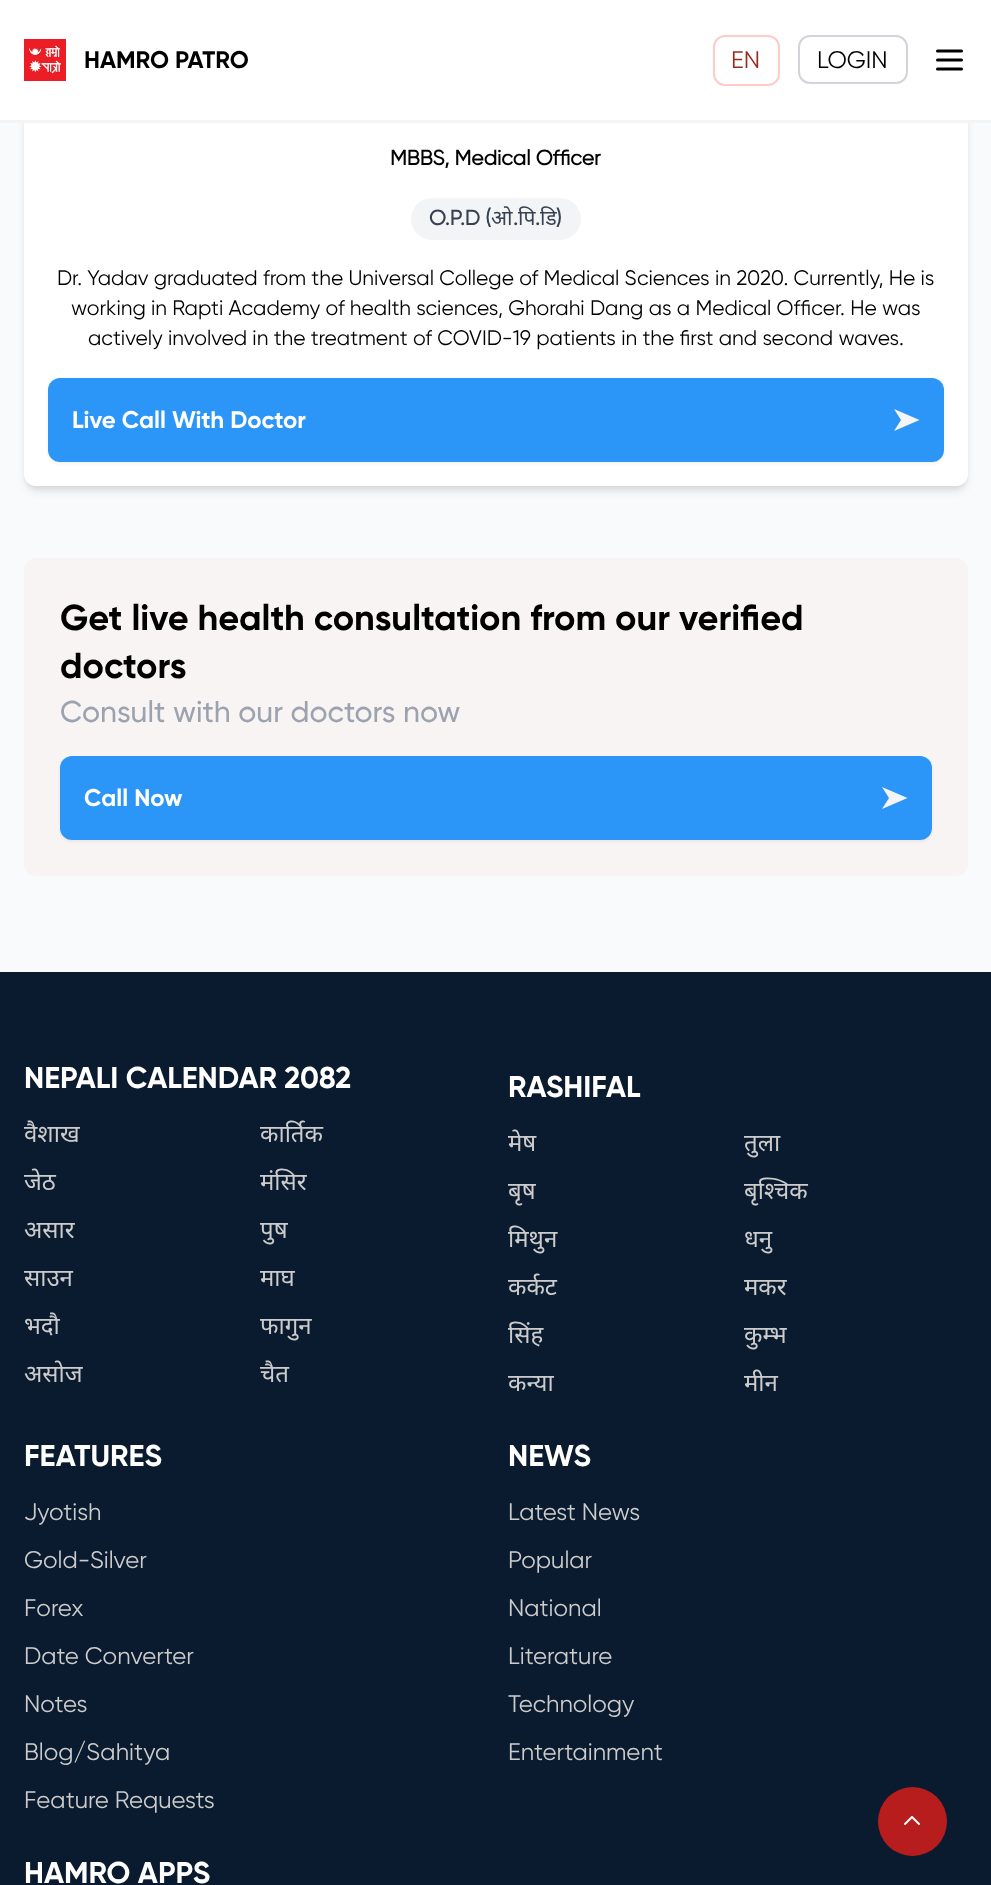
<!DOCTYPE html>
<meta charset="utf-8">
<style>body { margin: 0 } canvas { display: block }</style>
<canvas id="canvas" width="991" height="1885"></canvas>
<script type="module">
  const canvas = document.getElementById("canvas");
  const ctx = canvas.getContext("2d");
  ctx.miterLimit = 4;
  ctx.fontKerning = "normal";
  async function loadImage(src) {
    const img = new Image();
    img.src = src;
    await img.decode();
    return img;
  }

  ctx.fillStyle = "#f9fafb";
  ctx.fillRect(0, 0, 991, 1885);
  ctx.fillStyle = "rgba(0, 0, 0, 0.1)";
  ctx.filter = "blur(3px)";
  ctx.beginPath();
  ctx.roundRect(27, -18, 938, 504, 9);
  ctx.fill();
  ctx.filter = "none";
  ctx.filter = "blur(4.5px)";
  ctx.beginPath();
  ctx.roundRect(26, -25, 940, 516, 11);
  ctx.fill();
  ctx.filter = "none";
  ctx.fillStyle = "#ffffff";
  ctx.beginPath();
  ctx.roundRect(24, -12, 944, 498, 12);
  ctx.fill();
  ctx.fillRect(0, 0, 991, 120);
  ctx.fillStyle = "#f3f4f6";
  ctx.fillRect(0, 120, 991, 3);
  ctx.drawImage(await loadImage("img1.png"), 24, 39, 42, 42);
  ctx.font = "bold 24px 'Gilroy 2'";
  ctx.fillStyle = "#000000";
  ctx.fillText("HAMRO PATRO", 84, 68);
  ctx.beginPath();
  ctx.roundRect(714, 36, 65, 49, 11);
  ctx.strokeStyle = "#fecaca";
  ctx.lineWidth = 2;
  ctx.stroke();
  ctx.font = "24px Gilroy";
  ctx.fillStyle = "#992b1e";
  ctx.fillText("EN", 731, 68);
  ctx.beginPath();
  ctx.roundRect(799, 36, 108, 47, 11);
  ctx.strokeStyle = "#d1d5db";
  ctx.stroke();
  ctx.fillStyle = "#000000";
  ctx.fillText("LOGIN", 817, 68);
  ctx.beginPath();
  ctx.moveTo(937.5, 51);
  ctx.lineTo(961.5, 51);
  ctx.moveTo(937.5, 60);
  ctx.lineTo(961.5, 60);
  ctx.moveTo(937.5, 69);
  ctx.lineTo(961.5, 69);
  ctx.strokeStyle = "#000000";
  ctx.lineWidth = 3;
  ctx.lineCap = "round";
  ctx.lineJoin = "round";
  ctx.stroke();
  ctx.font = "bold 21px Gilroy";
  ctx.fillText("MBBS, Medical Officer", 390, 165);
  ctx.fillStyle = "#f3f4f6";
  ctx.beginPath();
  ctx.roundRect(411, 198, 170, 42, 21);
  ctx.fill();
  ctx.fillStyle = "#374151";
  ctx.fillText("O.P.D (", 429, 225);
  ctx.font = "21px Noto Sans";
  ctx.fillText("ओ", 491, 225);
  ctx.font = "bold 21px Gilroy";
  ctx.fillText(".", 513, 225);
  ctx.font = "21px Noto Sans";
  ctx.fillText("पि", 518, 225);
  ctx.font = "bold 21px Gilroy";
  ctx.fillText(".", 535, 225);
  ctx.font = "21px Noto Sans";
  ctx.fillText("डि", 540, 225);
  ctx.font = "bold 21px Gilroy";
  ctx.fillText(")", 556, 225);
  ctx.font = "21px Gilroy";
  ctx.fillStyle = "#000000";
  ctx.fillText("Dr. Yadav graduated from the Universal College of Medical Sciences in 2020. Currently, He is", 57, 285);
  ctx.fillText("working in Rapti Academy of health sciences, Ghorahi Dang as a Medical Officer. He was", 71, 315);
  ctx.fillText("actively involved in the treatment of COVID-19 patients in the first and second waves.", 88, 345);
  ctx.fillStyle = "rgba(0, 0, 0, 0.05)";
  ctx.filter = "blur(1.5px)";
  ctx.beginPath();
  ctx.roundRect(48, 380, 896, 84, 12);
  ctx.fill();
  ctx.filter = "none";
  ctx.fillStyle = "#2c96f8";
  ctx.beginPath();
  ctx.roundRect(48, 378, 896, 84, 12);
  ctx.fill();
  ctx.font = "bold 24px 'Gilroy 2'";
  ctx.fillStyle = "#ffffff";
  ctx.fillText("Live Call With Doctor", 72, 428);
  ctx.fillStyle = "#f4f4f9";
  ctx.beginPath();
  ctx.moveTo(894, 409);
  ctx.lineTo(919.5, 420);
  ctx.lineTo(894, 431);
  ctx.lineTo(901, 420);
  ctx.closePath();
  ctx.fill("evenodd");
  ctx.fillStyle = "#f9f4f4";
  ctx.beginPath();
  ctx.roundRect(24, 558, 944, 318, 12);
  ctx.fill();
  ctx.font = "bold 36px 'Gilroy 2'";
  ctx.fillStyle = "#000000";
  ctx.fillText("Get live health consultation from our verified", 60, 630);
  ctx.fillText("doctors", 60, 678);
  ctx.font = "500 30px Gilroy";
  ctx.fillStyle = "#9ca3af";
  ctx.fillText("Consult with our doctors now", 60, 722);
  ctx.fillStyle = "rgba(0, 0, 0, 0.05)";
  ctx.filter = "blur(1.5px)";
  ctx.beginPath();
  ctx.roundRect(60, 758, 872, 84, 12);
  ctx.fill();
  ctx.filter = "none";
  ctx.fillStyle = "#2c96f8";
  ctx.beginPath();
  ctx.roundRect(60, 756, 872, 84, 12);
  ctx.fill();
  ctx.font = "bold 24px 'Gilroy 2'";
  ctx.fillStyle = "#ffffff";
  ctx.fillText("Call Now", 84, 806);
  ctx.fillStyle = "#f4f4f9";
  ctx.beginPath();
  ctx.moveTo(882, 787);
  ctx.lineTo(907.5, 798);
  ctx.lineTo(882, 809);
  ctx.lineTo(889, 798);
  ctx.closePath();
  ctx.fill("evenodd");
  ctx.fillStyle = "#0b1b2f";
  ctx.fillRect(0, 972, 991, 913);
  ctx.font = "bold 30px 'Gilroy 2'";
  ctx.fillStyle = "#ffffff";
  ctx.fillText("NEPALI CALENDAR 2082", 24, 1088);
  ctx.font = "24px Noto Sans";
  ctx.fillStyle = "#cccccc";
  ctx.fillText("वैशाख", 24, 1142);
  ctx.fillText("कार्तिक", 260, 1142);
  ctx.fillText("जेठ", 24, 1190);
  ctx.fillText("मंसिर", 260, 1190);
  ctx.fillText("असार", 24, 1238);
  ctx.fillText("पुष", 260, 1238);
  ctx.fillText("साउन", 24, 1286);
  ctx.fillText("माघ", 260, 1286);
  ctx.fillText("भदौ", 24, 1334);
  ctx.fillText("फागुन", 260, 1334);
  ctx.fillText("असोज", 24, 1382);
  ctx.fillText("चैत", 260, 1382);
  ctx.font = "bold 30px 'Gilroy 2'";
  ctx.fillStyle = "#ffffff";
  ctx.fillText("RASHIFAL", 508, 1097);
  ctx.font = "24px Noto Sans";
  ctx.fillStyle = "#cccccc";
  ctx.fillText("मेष", 508, 1151);
  ctx.fillText("तुला", 744, 1151);
  ctx.fillText("बृष", 508, 1199);
  ctx.fillText("बृश्चिक", 744, 1199);
  ctx.fillText("मिथुन", 508, 1247);
  ctx.fillText("धनु", 744, 1247);
  ctx.fillText("कर्कट", 508, 1295);
  ctx.fillText("मकर", 744, 1295);
  ctx.fillText("सिंह", 508, 1343);
  ctx.fillText("कुम्भ", 744, 1343);
  ctx.fillText("कन्या", 508, 1391);
  ctx.fillText("मीन", 744, 1391);
  ctx.font = "bold 30px 'Gilroy 2'";
  ctx.fillStyle = "#ffffff";
  ctx.fillText("FEATURES", 24, 1466);
  ctx.font = "24px Gilroy";
  ctx.fillStyle = "#cccccc";
  ctx.fillText("Jyotish", 24, 1520);
  ctx.fillText("Gold-Silver", 24, 1568);
  ctx.fillText("Forex", 24, 1616);
  ctx.fillText("Date Converter", 24, 1664);
  ctx.fillText("Notes", 24, 1712);
  ctx.fillText("Blog/Sahitya", 24, 1760);
  ctx.fillText("Feature Requests", 24, 1808);
  ctx.font = "bold 30px 'Gilroy 2'";
  ctx.fillStyle = "#ffffff";
  ctx.fillText("NEWS", 508, 1466);
  ctx.font = "24px Gilroy";
  ctx.fillStyle = "#cccccc";
  ctx.fillText("Latest News", 508, 1520);
  ctx.fillText("Popular", 508, 1568);
  ctx.fillText("National", 508, 1616);
  ctx.fillText("Literature", 508, 1664);
  ctx.fillText("Technology", 508, 1712);
  ctx.fillText("Entertainment", 508, 1760);
  ctx.font = "bold 30px 'Gilroy 2'";
  ctx.fillStyle = "#ffffff";
  ctx.fillText("HAMRO APPS", 24, 1883);
  ctx.fillStyle = "#b71d1c";
  ctx.beginPath();
  ctx.arc(912.5, 1821.5, 34.5, 0, Math.PI * 2);
  ctx.fill();
  ctx.beginPath();
  ctx.moveTo(905, 1824);
  ctx.lineTo(912, 1817);
  ctx.lineTo(919, 1824);
  ctx.strokeStyle = "#ffffff";
  ctx.lineWidth = 2;
  ctx.stroke();
</script>
